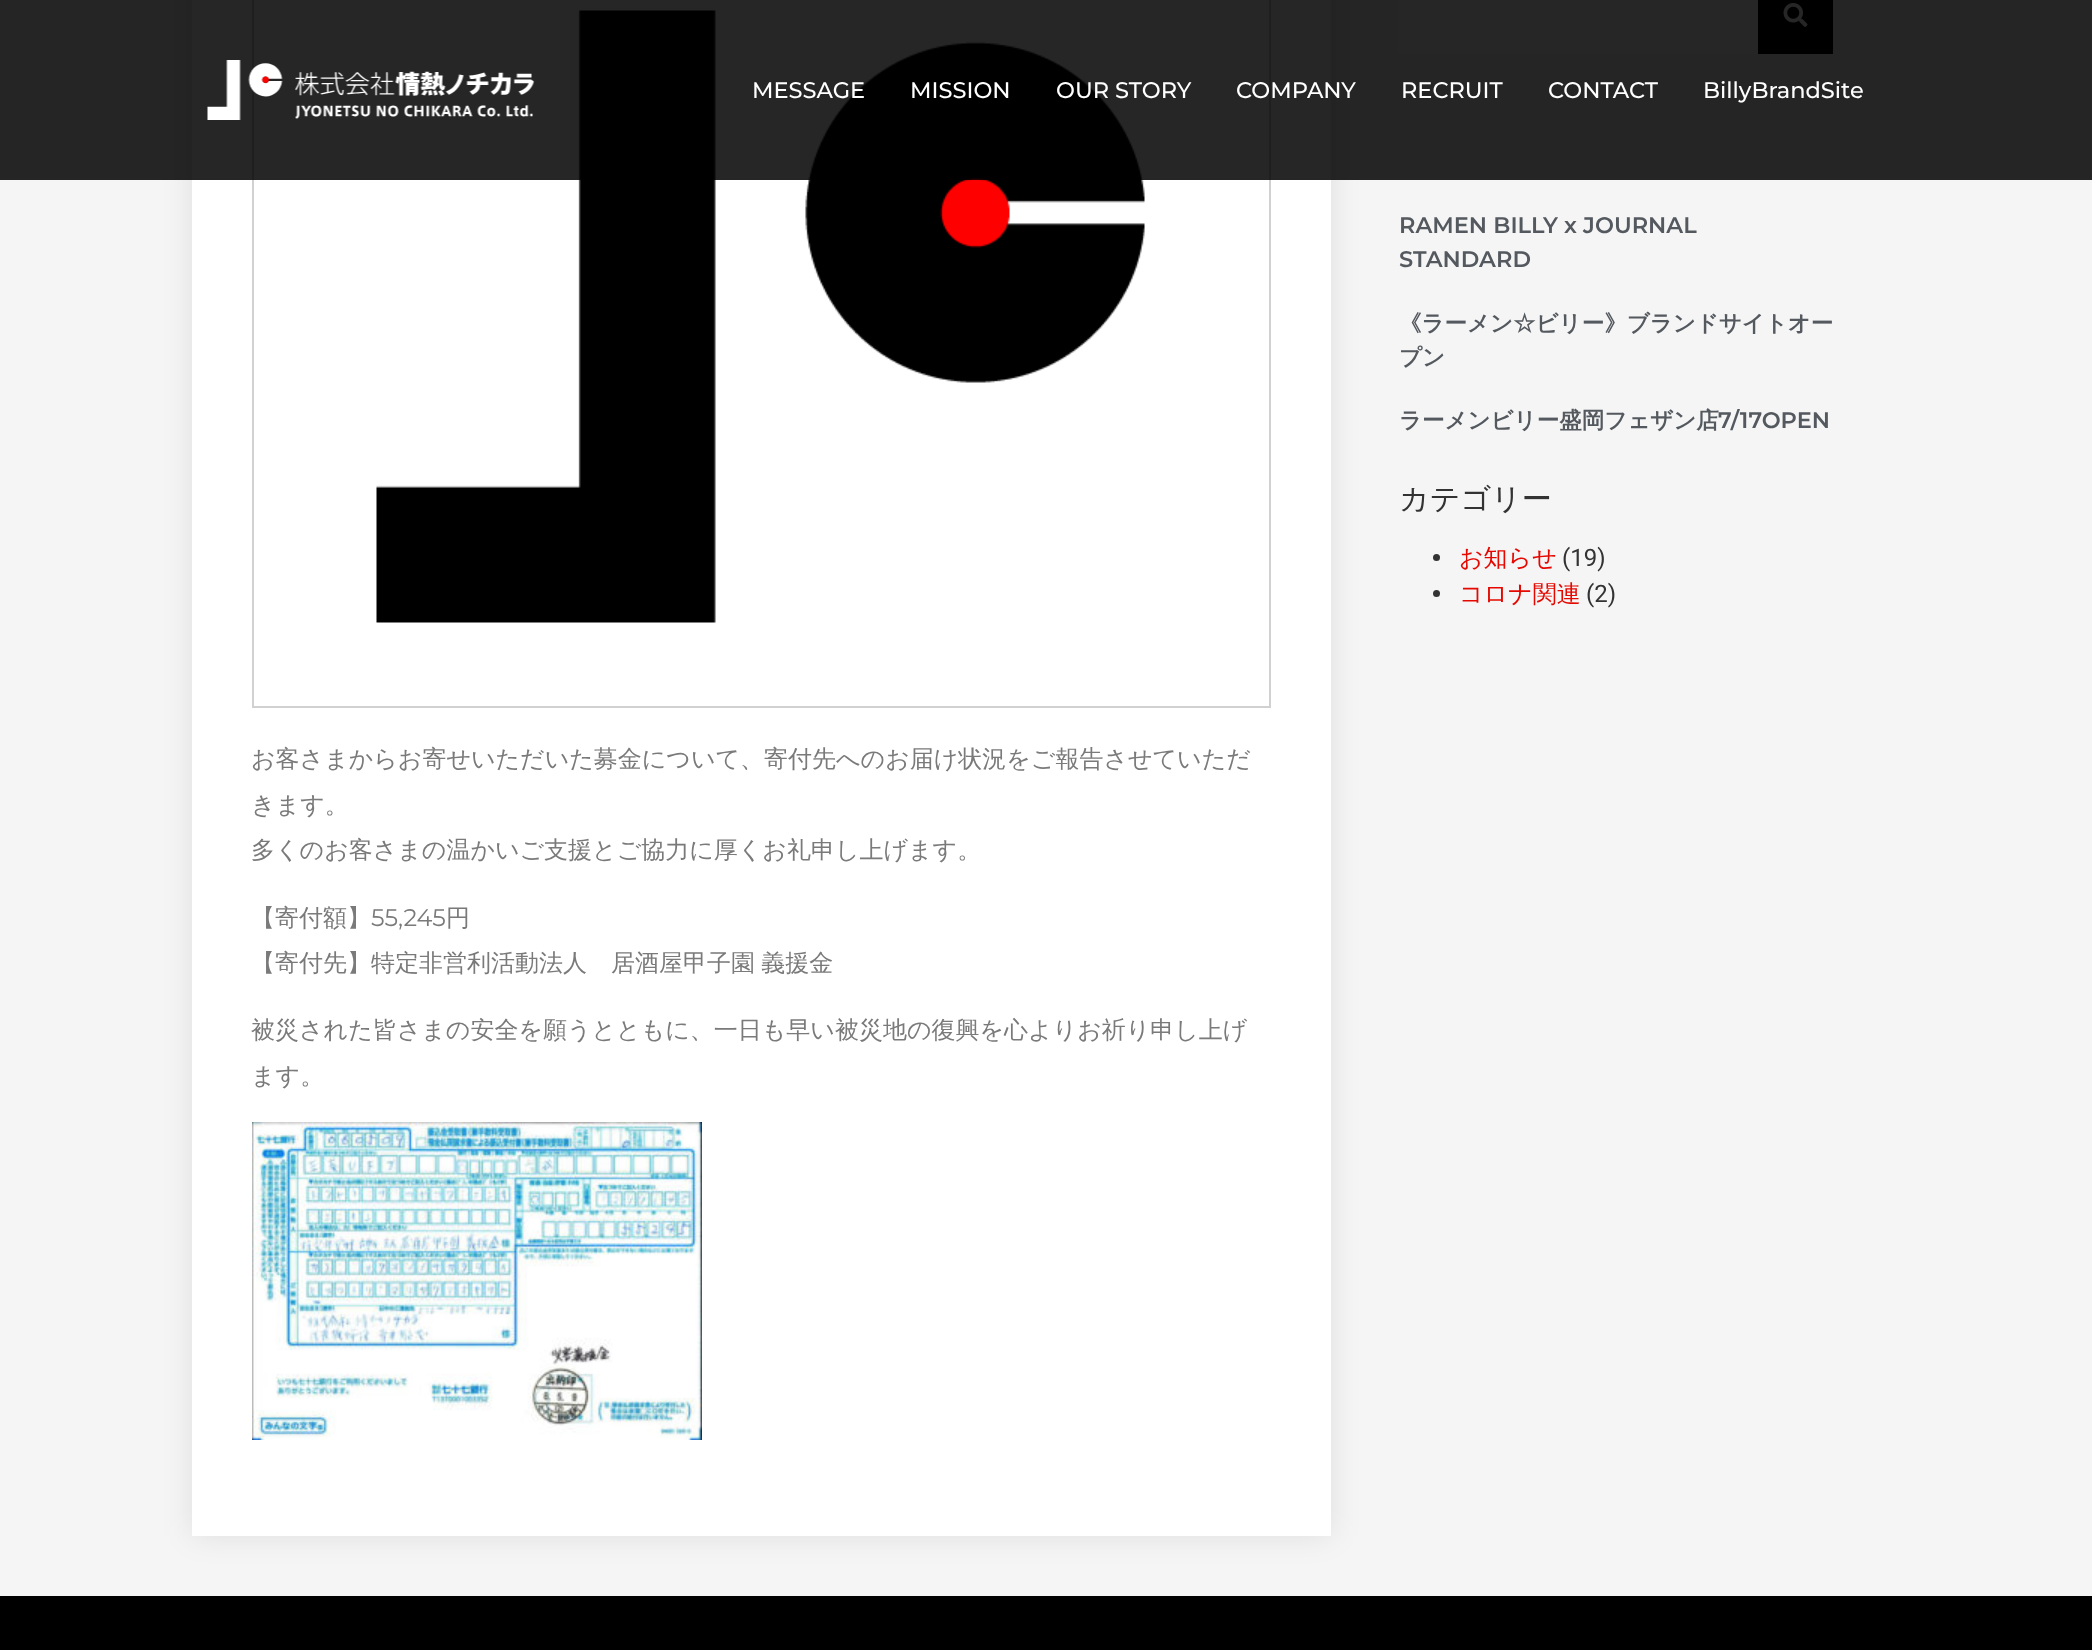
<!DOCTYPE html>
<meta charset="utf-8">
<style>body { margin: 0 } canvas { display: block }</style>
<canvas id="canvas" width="2092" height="1650"></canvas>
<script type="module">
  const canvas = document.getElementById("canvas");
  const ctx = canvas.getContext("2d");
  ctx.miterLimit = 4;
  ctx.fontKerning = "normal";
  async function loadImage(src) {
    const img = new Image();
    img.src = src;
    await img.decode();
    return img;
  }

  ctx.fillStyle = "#f5f5f5";
  ctx.fillRect(0, 0, 2092, 1650);
  ctx.fillStyle = "#ffffff";
  ctx.fillRect(1398, 0, 360, 54);
  ctx.fillStyle = "#000000";
  ctx.fillRect(1758, 0, 75, 54);
  ctx.drawImage(await loadImage("img2.png"), 1783, 3, 25, 24);
  ctx.fillStyle = "rgba(0, 0, 0, 0.09)";
  ctx.filter = "blur(15px)";
  ctx.beginPath();
  ctx.rect(192, -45, 1139, 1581);
  ctx.fill();
  ctx.filter = "none";
  ctx.fillStyle = "#ffffff";
  ctx.fillRect(192, 0, 1139, 1536);
  ctx.strokeStyle = "#d1d1d1";
  ctx.lineWidth = 2;
  ctx.strokeRect(253, -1, 1017, 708);
  ctx.drawImage(await loadImage("img3.png"), 376, 10, 769, 613);
  ctx.fillStyle = "rgba(0, 0, 0, 0.85)";
  ctx.fillRect(0, 0, 2092, 180);
  ctx.drawImage(await loadImage("img1.png"), 207, 60, 328, 60);
  ctx.font = "500 22.5px Montserrat";
  ctx.fillStyle = "#ffffff";
  ctx.fillText("MESSAGE", 752, 98);
  ctx.fillText("MISSION", 910, 98);
  ctx.fillText("OUR STORY", 1056, 98);
  ctx.fillText("COMPANY", 1236, 98);
  ctx.fillText("RECRUIT", 1401, 98);
  ctx.fillText("CONTACT", 1548, 98);
  ctx.fillText("BillyBrandSite", 1703, 98);
  ctx.font = "600 22.5px Montserrat";
  ctx.fillStyle = "#54595f";
  ctx.fillText("RAMEN BILLY x JOURNAL", 1399, 233);
  ctx.fillText("STANDARD", 1399, 267);
  ctx.font = "bold 22.5px WenQuanYi Zen Hei";
  ctx.fillText("《ラーメン☆ビリー》ブランドサイトオー", 1399, 331);
  ctx.fillText("プン", 1399, 365);
  ctx.fillText("ラーメンビリー盛岡フェザン店", 1399, 428);
  ctx.font = "600 22.5px Montserrat";
  ctx.fillText("7/17OPEN", 1718, 428);
  ctx.font = "500 30px WenQuanYi Zen Hei";
  ctx.fillStyle = "#333333";
  ctx.fillText("カテゴリー", 1399, 509);
  ctx.beginPath();
  ctx.arc(1436.5, 557.5, 3.5, 0, Math.PI * 2);
  ctx.fill();
  ctx.font = "500 24px WenQuanYi Zen Hei";
  ctx.fillStyle = "#e40801";
  ctx.fillText("お知らせ", 1459, 566);
  ctx.font = "24px Roboto";
  ctx.fillStyle = "#333333";
  ctx.fillText("(19)", 1562, 566);
  ctx.beginPath();
  ctx.arc(1436.5, 593.5, 3.5, 0, Math.PI * 2);
  ctx.fill();
  ctx.font = "500 24px WenQuanYi Zen Hei";
  ctx.fillStyle = "#e40801";
  ctx.fillText("コロナ関連", 1459, 602);
  ctx.font = "24px Roboto";
  ctx.fillStyle = "#333333";
  ctx.fillText("(2)", 1586, 602);
  ctx.font = "500 24px WenQuanYi Zen Hei";
  ctx.fillStyle = "#7a7a7a";
  ctx.fillText("お客さまからお寄せいただいた募金について、寄付先へのお届け状況をご報告させていただ", 251, 767);
  ctx.fillText("きます。", 251, 813);
  ctx.fillText("多くのお客さまの温かいご支援とご協力に厚くお礼申し上げます。", 251, 858);
  ctx.fillText("【寄付額】", 251, 926);
  ctx.font = "24px Montserrat";
  ctx.fillText("55,245", 371, 926);
  ctx.font = "500 24px WenQuanYi Zen Hei";
  ctx.fillText("円", 446, 926);
  ctx.wordSpacing = "-1px";
  ctx.fillText("【寄付先】特定非営利活動法人　居酒屋甲子園 義援金", 251, 971);
  ctx.wordSpacing = "0px";
  ctx.fillText("被災された皆さまの安全を願うとともに、一日も早い被災地の復興を心よりお祈り申し上げ", 251, 1038);
  ctx.fillText("ます。", 251, 1084);
  ctx.drawImage(await loadImage("img4.png"), 252, 1122, 450, 318);
  ctx.fillStyle = "#000000";
  ctx.fillRect(0, 1596, 2092, 54);
</script>
